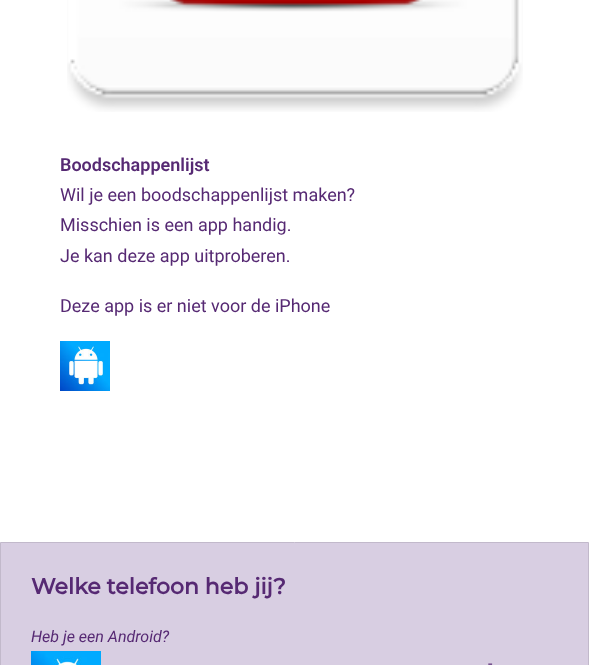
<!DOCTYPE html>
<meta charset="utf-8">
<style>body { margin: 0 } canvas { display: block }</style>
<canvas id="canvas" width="589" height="665"></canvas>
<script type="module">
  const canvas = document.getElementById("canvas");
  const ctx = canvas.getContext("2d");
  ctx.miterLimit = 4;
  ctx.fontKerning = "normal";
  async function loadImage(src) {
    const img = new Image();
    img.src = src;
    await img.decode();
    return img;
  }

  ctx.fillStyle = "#ffffff";
  ctx.fillRect(0, 0, 589, 665);
  ctx.drawImage(await loadImage("img1.png"), 67, 0, 456, 112);
  ctx.font = "600 18px Roboto";
  ctx.fillStyle = "#562973";
  ctx.fillText("Boodschappenlijst", 60, 171);
  ctx.font = "18px Roboto";
  ctx.fillText("Wil je een boodschappenlijst maken?", 60, 201);
  ctx.fillText("Misschien is een app handig.", 60, 231);
  ctx.fillText("Je kan deze app uitproberen.", 60, 262);
  ctx.fillText("Deze app is er niet voor de iPhone", 60, 312);
  ctx.drawImage(await loadImage("img2.png"), 60, 341, 50, 50);
  ctx.fillStyle = "#d8cee2";
  ctx.beginPath();
  ctx.rect(0.5, 542.5, 588, 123);
  ctx.fill();
  ctx.strokeStyle = "#c2b9cb";
  ctx.stroke();
  ctx.font = "bold 22px Montserrat";
  ctx.fillStyle = "#562973";
  ctx.fillText("Welke telefoon heb jij?", 31, 594);
  ctx.font = "italic 16px Roboto";
  ctx.fillText("Heb je een Android?", 31, 642);
  ctx.drawImage(await loadImage("img3.png"), 31, 651, 70, 14);
  ctx.font = "16px Roboto";
  ctx.fillText("-", 488, 669);
</script>
